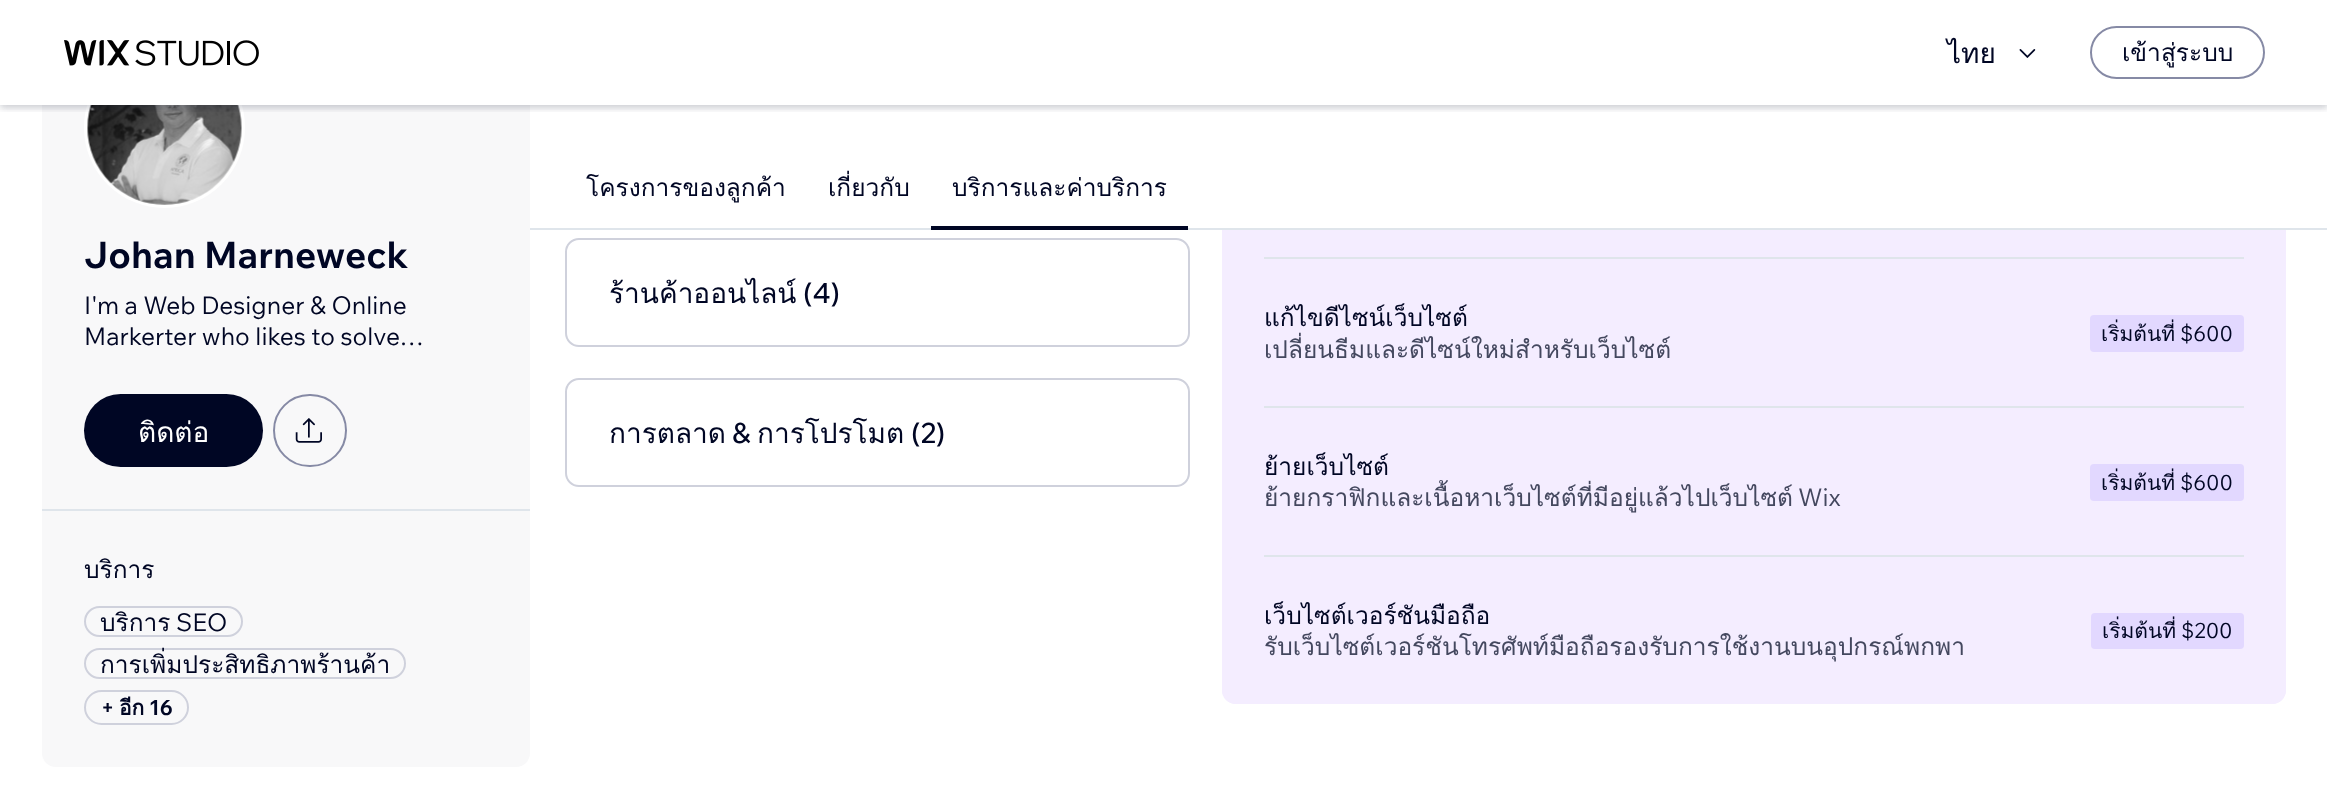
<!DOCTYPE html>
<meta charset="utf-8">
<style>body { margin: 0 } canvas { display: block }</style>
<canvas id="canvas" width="2327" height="798"></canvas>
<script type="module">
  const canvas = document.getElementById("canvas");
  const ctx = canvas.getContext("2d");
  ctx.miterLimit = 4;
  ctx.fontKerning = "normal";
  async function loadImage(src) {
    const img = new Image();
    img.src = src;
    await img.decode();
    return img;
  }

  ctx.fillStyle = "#ffffff";
  ctx.fillRect(0, 0, 2327, 798);
  ctx.fillStyle = "#f8f8f9";
  ctx.beginPath();
  ctx.roundRect(42, 5, 488, 762, 14);
  ctx.fill();
  ctx.beginPath();
  ctx.arc(164.5, 127.5, 78.5, 0, Math.PI * 2);
  ctx.strokeStyle = "#ffffff";
  ctx.lineWidth = 4;
  ctx.stroke();
  ctx.fillStyle = "#f4edff";
  ctx.beginPath();
  ctx.roundRect(1222, -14, 1064, 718, 14);
  ctx.fill();
  ctx.fillStyle = "#ffffff";
  ctx.fillRect(42, 0, 2244, 105);
  ctx.drawImage(await loadImage("img4.png"), 87, 105, 155, 100);
  ctx.fillRect(1222, 105, 1064, 123);
  ctx.save();
  ctx.beginPath();
  ctx.rect(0, 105, 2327, 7);
  ctx.clip();
  ctx.fillStyle = "rgba(0, 6, 36, 0.12)";
  ctx.filter = "blur(3.5px)";
  ctx.beginPath();
  ctx.rect(0, 4, 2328, 105);
  ctx.fill();
  ctx.filter = "none";
  ctx.restore();
  ctx.save();
  ctx.beginPath();
  ctx.rect(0, 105, 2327, 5);
  ctx.clip();
  ctx.fillStyle = "rgba(0, 6, 36, 0.12)";
  ctx.filter = "blur(5px)";
  ctx.beginPath();
  ctx.rect(0, 0, 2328, 105);
  ctx.fill();
  ctx.filter = "none";
  ctx.restore();
  ctx.drawImage(await loadImage("img1.png"), 64, 40, 66, 26);
  ctx.drawImage(await loadImage("img2.png"), 135, 40, 124, 26);
  ctx.font = "28px Loma";
  ctx.fillStyle = "#000624";
  ctx.fillText("ไทย", 1947, 63);
  ctx.drawImage(await loadImage("img3.png"), 2019, 49, 17, 9);
  ctx.beginPath();
  ctx.roundRect(2091, 27, 173, 51, 25.5);
  ctx.strokeStyle = "#868aa5";
  ctx.lineWidth = 2;
  ctx.stroke();
  ctx.font = "24.5px Loma";
  ctx.fillText("เข้าสู่ระบบ", 2122, 61);
  ctx.font = "bold 36.75px Wix Madefor Text";
  ctx.fillText("Johan Marneweck", 84, 268);
  ctx.font = "24.5px Wix Madefor Text";
  ctx.fillText("I'm a Web Designer & Online", 84, 314);
  ctx.fillText("Markerter who likes to solve…", 84, 345);
  ctx.beginPath();
  ctx.roundRect(84, 394, 179, 73, 36.5);
  ctx.fill();
  ctx.font = "28px Loma";
  ctx.fillStyle = "#ffffff";
  ctx.fillText("ติดต่อ", 138, 442);
  ctx.beginPath();
  ctx.roundRect(274, 395, 72, 71, 35.5);
  ctx.stroke();
  ctx.drawImage(await loadImage("img5.png"), 295, 418, 27, 25);
  ctx.fillStyle = "#dfe5eb";
  ctx.fillRect(42, 509, 488, 2);
  ctx.font = "24.5px Loma";
  ctx.fillStyle = "#000624";
  ctx.fillText("บริการ", 84, 578);
  ctx.beginPath();
  ctx.roundRect(85, 607, 157, 29, 14.5);
  ctx.strokeStyle = "#cfd1dc";
  ctx.stroke();
  ctx.fillText("บริการ", 100, 631);
  ctx.font = "24.5px Wix Madefor Text";
  ctx.fillText("SEO", 176, 631);
  ctx.beginPath();
  ctx.roundRect(85, 649, 320, 29, 14.5);
  ctx.stroke();
  ctx.font = "24.5px Loma";
  ctx.fillText("การเพิ่มประสิทธิภาพร้านค้า", 100, 673);
  ctx.beginPath();
  ctx.roundRect(85, 691, 103, 33, 16.5);
  ctx.stroke();
  ctx.font = "bold 21px Wix Madefor Text";
  ctx.fillText("+", 101, 715);
  ctx.font = "bold 21px Loma";
  ctx.fillText("อีก", 119, 715);
  ctx.font = "bold 21px Wix Madefor Text";
  ctx.fillText("16", 149, 715);
  ctx.font = "24.5px Loma";
  ctx.fillText("โครงการของลูกค้า", 586, 196);
  ctx.fillText("เกี่ยวกับ", 828, 196);
  ctx.fillText("บริการและค่าบริการ", 952, 196);
  ctx.fillStyle = "#dfe5eb";
  ctx.fillRect(530, 228, 1797, 2);
  ctx.fillStyle = "#000624";
  ctx.fillRect(931, 226, 257, 4);
  ctx.beginPath();
  ctx.roundRect(566, 239, 623, 107, 13);
  ctx.stroke();
  ctx.font = "28px Loma";
  ctx.fillText("ร้านค้าออนไลน์", 609, 303);
  ctx.font = "500 28px Wix Madefor Text";
  ctx.fillText("(4)", 803, 303);
  ctx.beginPath();
  ctx.roundRect(566, 379, 623, 107, 13);
  ctx.stroke();
  ctx.font = "28px Loma";
  ctx.fillText("การตลาด", 609, 443);
  ctx.font = "500 28px Wix Madefor Text";
  ctx.fillText("&", 732, 443);
  ctx.font = "28px Loma";
  ctx.fillText("การโปรโมต", 757, 443);
  ctx.font = "500 28px Wix Madefor Text";
  ctx.fillText("(2)", 911, 443);
  ctx.fillStyle = "#dfe5eb";
  ctx.fillRect(1264, 257, 980, 2);
  ctx.font = "24.5px Loma";
  ctx.fillStyle = "#000624";
  ctx.fillText("แก้ไขดีไซน์เว็บไซต์", 1264, 326);
  ctx.fillStyle = "#44485f";
  ctx.fillText("เปลี่ยนธีมและดีไซน์ใหม่สำหรับเว็บไซต์", 1264, 358);
  ctx.fillStyle = "#e2d8ff";
  ctx.beginPath();
  ctx.roundRect(2090, 315, 154, 37, 4);
  ctx.fill();
  ctx.font = "21px Loma";
  ctx.fillStyle = "#000624";
  ctx.fillText("เริ่มต้นที่", 2101, 341);
  ctx.font = "21px Wix Madefor Text";
  ctx.fillText("$600", 2180, 341);
  ctx.fillStyle = "#dfe5eb";
  ctx.fillRect(1264, 406, 980, 2);
  ctx.font = "24.5px Loma";
  ctx.fillStyle = "#000624";
  ctx.fillText("ย้ายเว็บไซต์", 1264, 475);
  ctx.fillStyle = "#44485f";
  ctx.fillText("ย้ายกราฟิกและเนื้อหาเว็บไซต์ที่มีอยู่แล้วไปเว็บไซต์", 1264, 506);
  ctx.font = "24.5px Wix Madefor Text";
  ctx.fillText("Wix", 1798, 506);
  ctx.fillStyle = "#e2d8ff";
  ctx.beginPath();
  ctx.roundRect(2090, 464, 154, 37, 4);
  ctx.fill();
  ctx.font = "21px Loma";
  ctx.fillStyle = "#000624";
  ctx.fillText("เริ่มต้นที่", 2101, 490);
  ctx.font = "21px Wix Madefor Text";
  ctx.fillText("$600", 2180, 490);
  ctx.fillStyle = "#dfe5eb";
  ctx.fillRect(1264, 555, 980, 2);
  ctx.fillStyle = "#f4edff";
  ctx.beginPath();
  ctx.roundRect(1222, 557, 1064, 147, 14);
  ctx.fill();
  ctx.font = "24.5px Loma";
  ctx.fillStyle = "#000624";
  ctx.fillText("เว็บไซต์เวอร์ชันมือถือ", 1264, 624);
  ctx.fillStyle = "#44485f";
  ctx.fillText("รับเว็บไซต์เวอร์ชันโทรศัพท์มือถือรองรับการใช้งานบนอุปกรณ์พกพา", 1264, 655);
  ctx.fillStyle = "#e2d8ff";
  ctx.beginPath();
  ctx.roundRect(2091, 613, 153, 36, 4);
  ctx.fill();
  ctx.font = "21px Loma";
  ctx.fillStyle = "#000624";
  ctx.fillText("เริ่มต้นที่", 2102, 638);
  ctx.font = "21px Wix Madefor Text";
  ctx.fillText("$200", 2181, 638);
</script>
